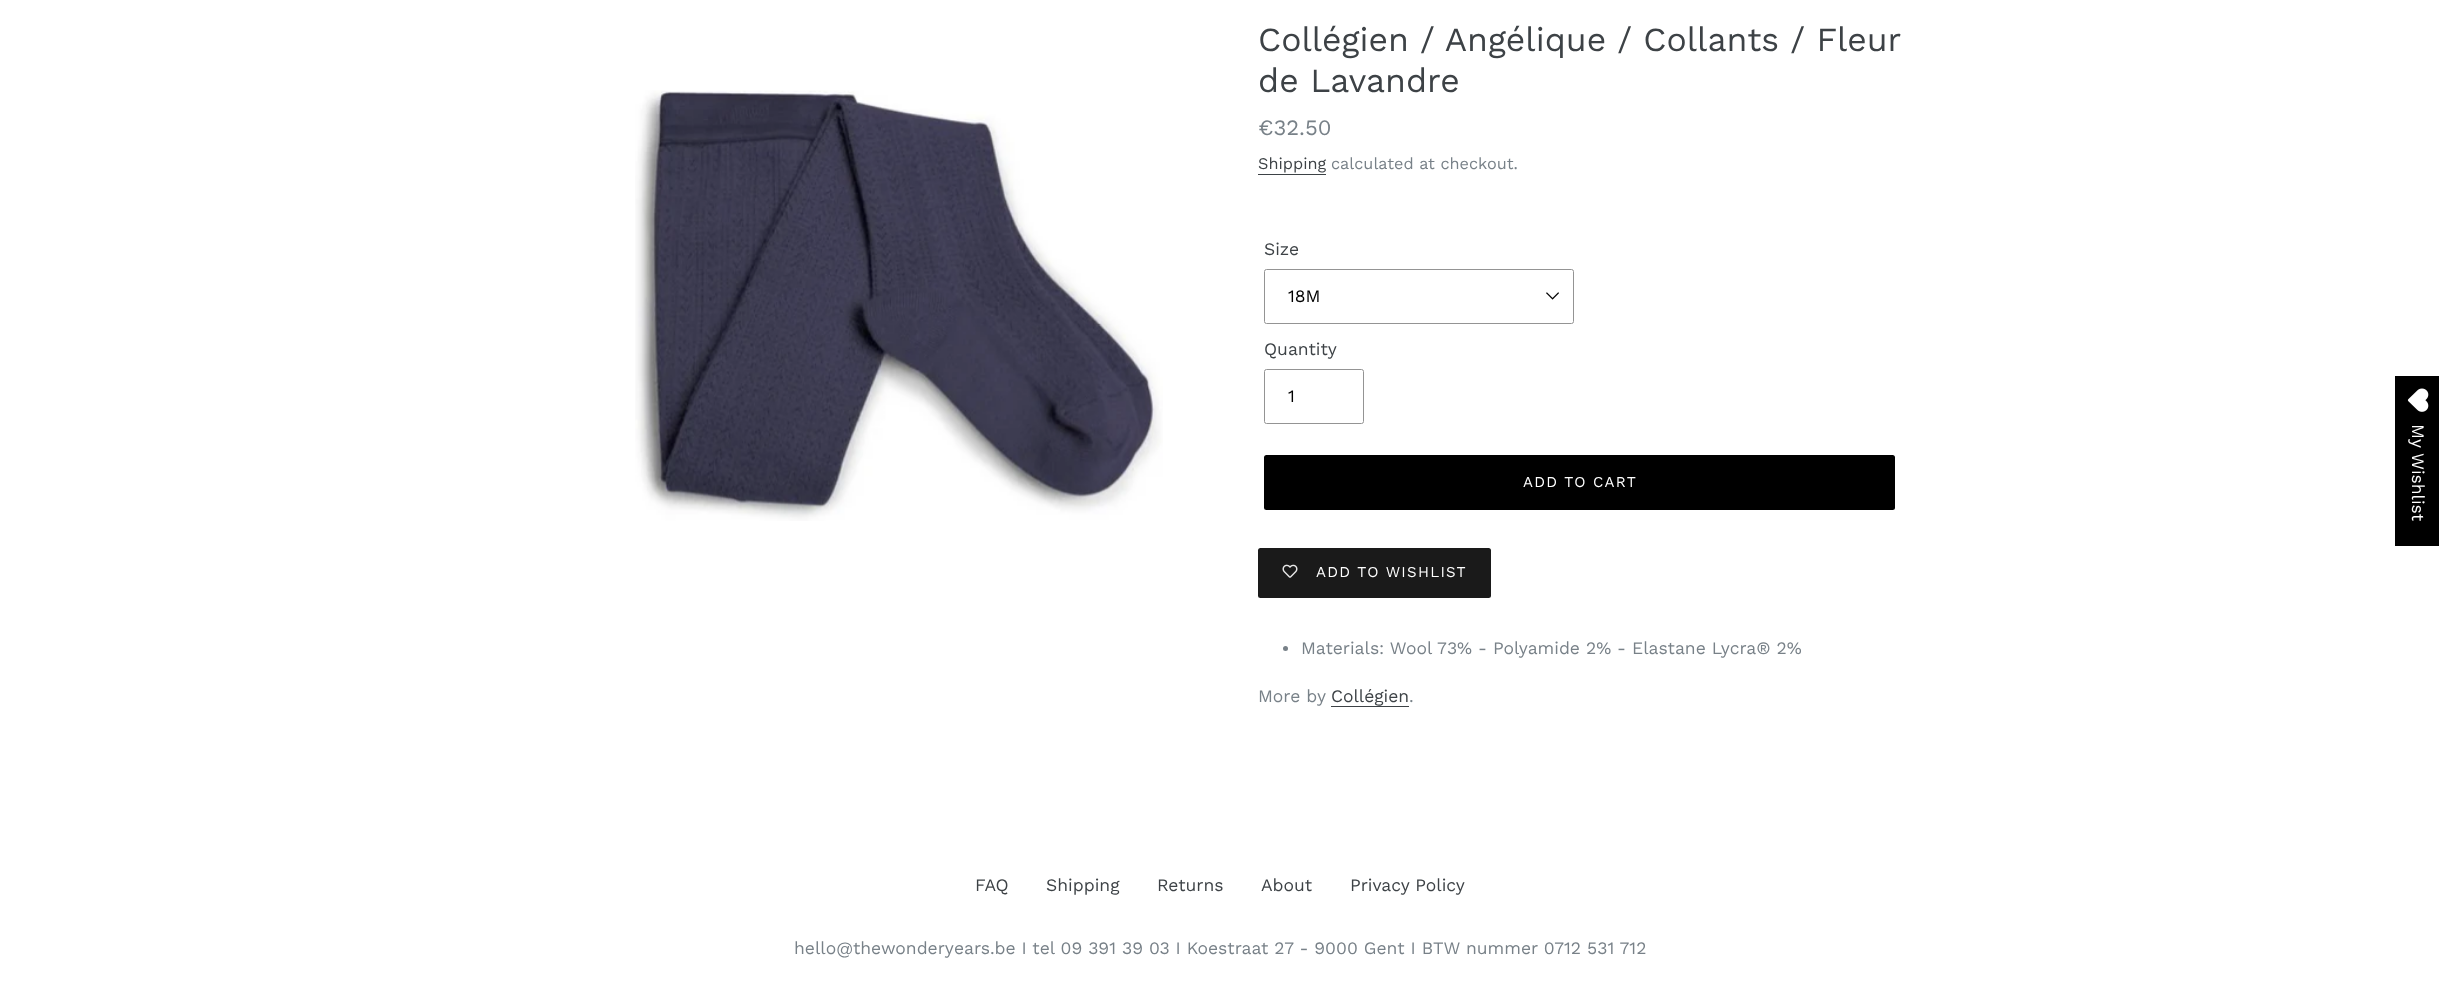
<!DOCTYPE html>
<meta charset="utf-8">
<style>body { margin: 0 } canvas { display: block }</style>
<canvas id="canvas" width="2439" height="985"></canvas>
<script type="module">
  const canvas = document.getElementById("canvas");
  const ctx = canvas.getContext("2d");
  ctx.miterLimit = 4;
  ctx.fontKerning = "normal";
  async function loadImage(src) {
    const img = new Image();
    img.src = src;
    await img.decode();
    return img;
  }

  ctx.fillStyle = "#ffffff";
  ctx.fillRect(0, 0, 2439, 985);
  ctx.drawImage(await loadImage("img1.png"), 635, 90, 528, 431);
  ctx.wordSpacing = "-0.25px";
  ctx.font = "33.75px Work Sans";
  ctx.fillStyle = "#3d4246";
  ctx.fillText("Collégien / Angélique / Collants / Fleur", 1258, 51);
  ctx.wordSpacing = "0px";
  ctx.fillText("de Lavandre", 1258, 92);
  ctx.font = "22px Work Sans";
  ctx.fillStyle = "#788188";
  ctx.fillText("€32.50", 1258, 135);
  ctx.font = "16.25px Work Sans";
  ctx.fillStyle = "#3d4246";
  ctx.fillText("Shipping", 1258, 169);
  ctx.fillRect(1258, 174, 68, 1);
  ctx.fillStyle = "#788188";
  ctx.fillText("calculated at checkout.", 1331, 169);
  ctx.font = "17.5px Work Sans";
  ctx.fillStyle = "#3d4246";
  ctx.fillText("Size", 1264, 255);
  ctx.drawImage(await loadImage("img2.png"), 1546, 292, 13, 8);
  ctx.beginPath();
  ctx.roundRect(1264.5, 269.5, 309, 54, 2);
  ctx.strokeStyle = "#949494";
  ctx.stroke();
  ctx.fillStyle = "#000000";
  ctx.fillText("18M", 1288, 302);
  ctx.fillStyle = "#3d4246";
  ctx.fillText("Quantity", 1264, 355);
  ctx.beginPath();
  ctx.roundRect(1264.5, 369.5, 99, 54, 2);
  ctx.stroke();
  ctx.fillStyle = "#000000";
  ctx.fillText("1", 1288, 402);
  ctx.beginPath();
  ctx.roundRect(1264, 455, 631, 55, 2.5);
  ctx.fill();
  ctx.letterSpacing = "1.25px";
  ctx.font = "15px Work Sans";
  ctx.fillStyle = "#ffffff";
  ctx.fillText("ADD TO CART", 1523, 487);
  ctx.fillStyle = "#1a1a1a";
  ctx.beginPath();
  ctx.roundRect(1258, 548, 233, 50, 2.5);
  ctx.fill();
  ctx.drawImage(await loadImage("img3.png"), 1282, 564, 16, 14);
  ctx.fillStyle = "#ffffff";
  ctx.fillText("ADD TO WISHLIST", 1316, 577);
  ctx.fillStyle = "#788188";
  ctx.beginPath();
  ctx.arc(1285.5, 648.5, 2.5, 0, Math.PI * 2);
  ctx.fill();
  ctx.letterSpacing = "0px";
  ctx.font = "17.5px Work Sans";
  ctx.fillText("Materials: Wool 73% - Polyamide 2% - Elastane Lycra® 2%", 1301, 654);
  ctx.fillText("More by", 1258, 702);
  ctx.fillStyle = "#3d4246";
  ctx.fillText("Collégien", 1331, 702);
  ctx.fillRect(1331, 706, 78, 1);
  ctx.fillStyle = "#788188";
  ctx.fillText(".", 1409, 702);
  ctx.fillStyle = "#3d4246";
  ctx.fillText("FAQ", 975, 891);
  ctx.fillText("Shipping", 1046, 891);
  ctx.fillText("Returns", 1157, 891);
  ctx.fillText("About", 1261, 891);
  ctx.fillText("Privacy Policy", 1350, 891);
  ctx.fillStyle = "#788188";
  ctx.fillText("hello@thewonderyears.be I tel 09 391 39 03 I Koestraat 27 - 9000 Gent I BTW nummer 0712 531 712", 794, 954);
  ctx.fillStyle = "#000000";
  ctx.fillRect(2395, 376, 44, 170);
  ctx.drawImage(await loadImage("img4.png"), 2407, 388, 22, 24);
  ctx.fillStyle = "#ffffff";
  ctx.save();
  ctx.translate(2412, 424);
  ctx.rotate(90 * Math.PI / 180);
  ctx.fillText("My Wishlist", 0, 0);
  ctx.restore();
</script>
